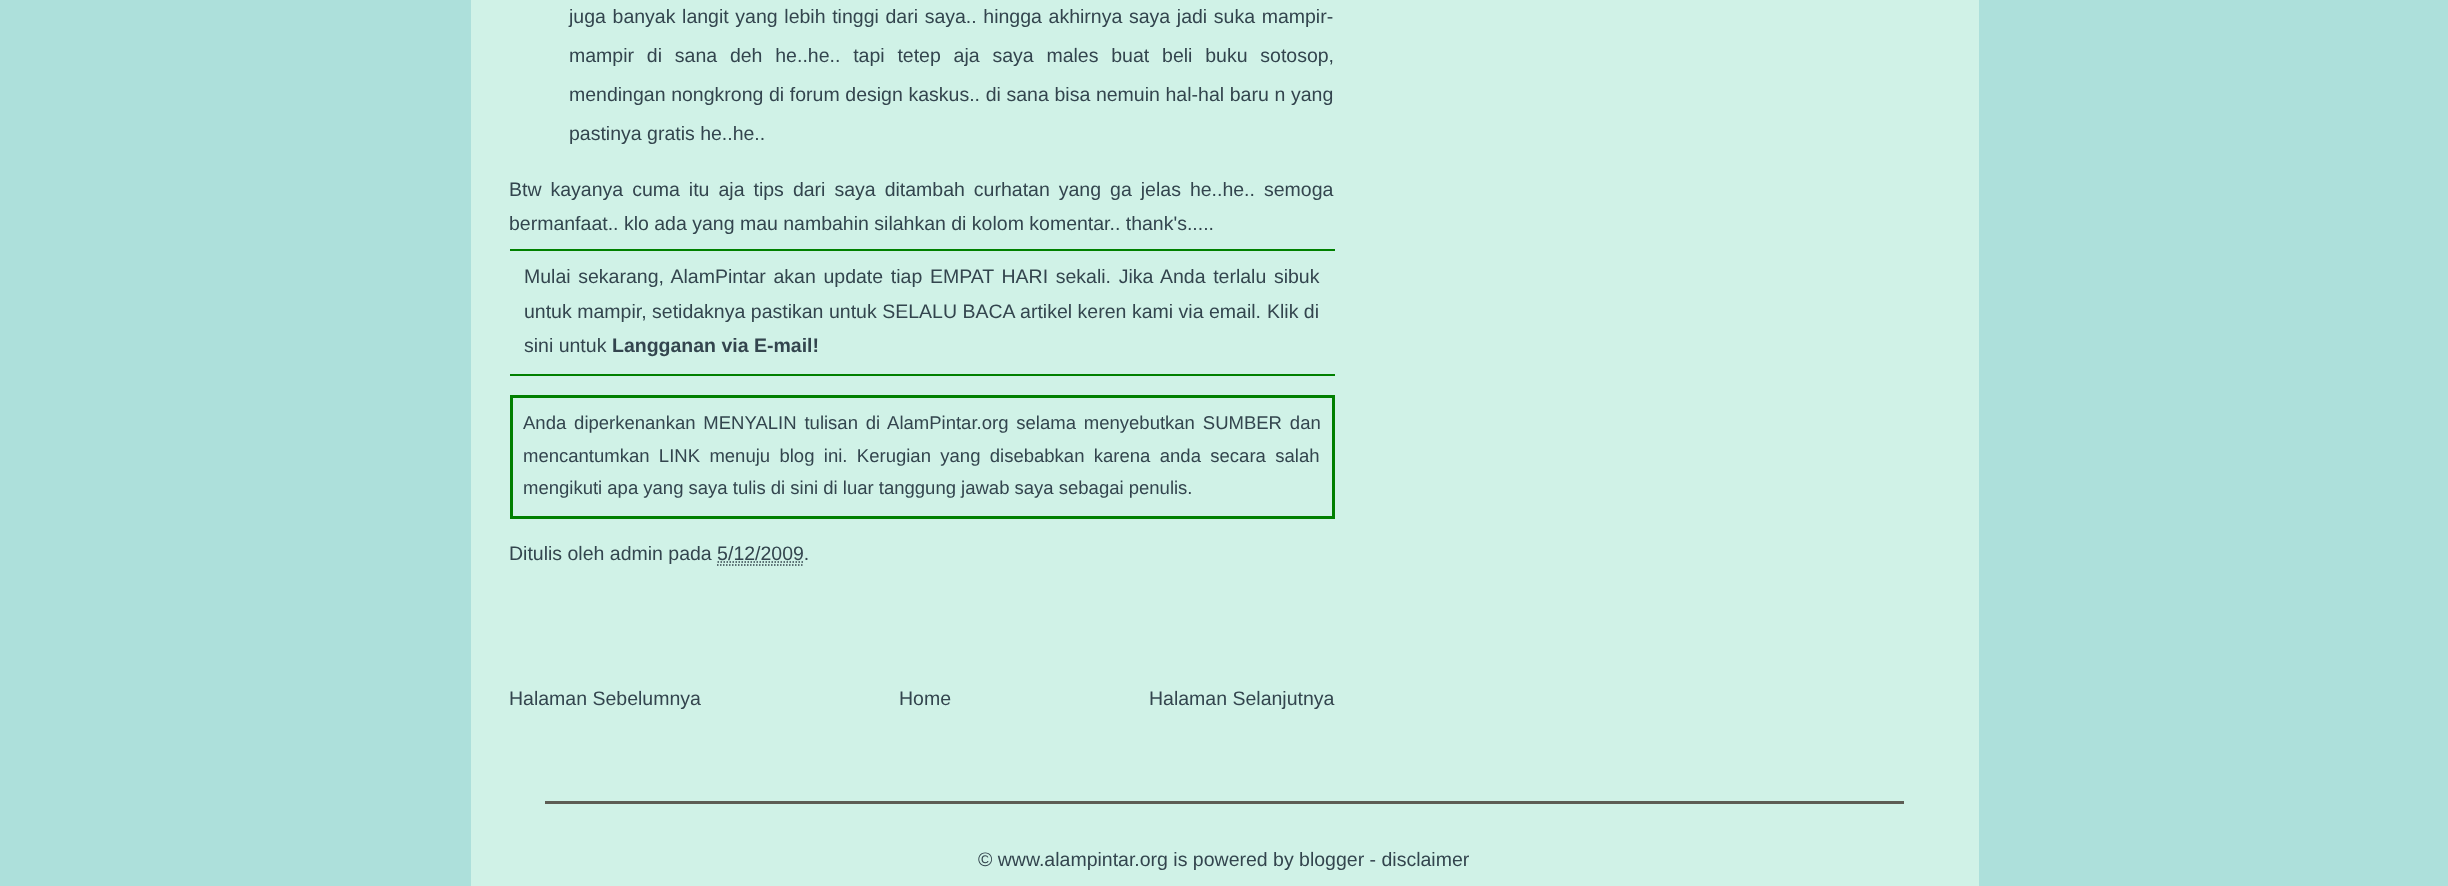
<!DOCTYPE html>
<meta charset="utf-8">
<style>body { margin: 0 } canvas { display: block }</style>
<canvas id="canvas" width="2448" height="886"></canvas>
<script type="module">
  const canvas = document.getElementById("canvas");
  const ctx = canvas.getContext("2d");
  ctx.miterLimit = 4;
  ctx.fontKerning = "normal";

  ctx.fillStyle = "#ade0db";
  ctx.fillRect(0, 0, 2448, 886);
  ctx.fillStyle = "#d0f2e7";
  ctx.fillRect(471, 0, 1508, 886);
  ctx.wordSpacing = "1.25px";
  ctx.font = "19.5px Liberation Sans";
  ctx.fillStyle = "#33454e";
  ctx.fillText("juga banyak langit yang lebih tinggi dari saya.. hingga akhirnya saya jadi suka mampir-", 569, 23);
  ctx.wordSpacing = "7.4px";
  ctx.fillText("mampir di sana deh he..he.. tapi tetep aja saya males buat beli buku sotosop,", 569, 62);
  ctx.wordSpacing = "0.25px";
  ctx.fillText("mendingan nongkrong di forum design kaskus.. di sana bisa nemuin hal-hal baru n yang", 569, 101);
  ctx.wordSpacing = "0px";
  ctx.fillText("pastinya gratis he..he..", 569, 140);
  ctx.wordSpacing = "3.6px";
  ctx.fillText("Btw kayanya cuma itu aja tips dari saya ditambah curhatan yang ga jelas he..he.. semoga", 509, 196);
  ctx.wordSpacing = "0px";
  ctx.fillText("bermanfaat.. klo ada yang mau nambahin silahkan di kolom komentar.. thank's.....", 509, 230);
  ctx.fillStyle = "#008000";
  ctx.fillRect(510, 249, 825, 2);
  ctx.fillRect(510, 374, 825, 2);
  ctx.wordSpacing = "2.25px";
  ctx.fillStyle = "#33454e";
  ctx.fillText("Mulai sekarang, AlamPintar akan update tiap EMPAT HARI sekali. Jika Anda terlalu sibuk", 524, 283);
  ctx.wordSpacing = "0.1px";
  ctx.fillText("untuk mampir, setidaknya pastikan untuk SELALU BACA artikel keren kami via email.", 524, 318);
  ctx.wordSpacing = "0px";
  ctx.fillText("Klik di", 1267, 318);
  ctx.fillText("sini untuk", 524, 352);
  ctx.font = "bold 19.5px Liberation Sans";
  ctx.fillText("Langganan via E-mail!", 612, 352);
  ctx.strokeStyle = "#008000";
  ctx.lineWidth = 3;
  ctx.strokeRect(511.5, 396.5, 822, 121);
  ctx.wordSpacing = "2.75px";
  ctx.font = "18.5px Liberation Sans";
  ctx.fillText("Anda diperkenankan MENYALIN tulisan di AlamPintar.org selama menyebutkan SUMBER dan", 523, 429);
  ctx.wordSpacing = "4.25px";
  ctx.fillText("mencantumkan LINK menuju blog ini. Kerugian yang disebabkan karena anda secara salah", 523, 462);
  ctx.wordSpacing = "0px";
  ctx.fillText("mengikuti apa yang saya tulis di sini di luar tanggung jawab saya sebagai penulis.", 523, 494);
  ctx.font = "19.5px Liberation Sans";
  ctx.fillText("Ditulis oleh admin pada 5/12/2009.", 509, 560);
  ctx.beginPath();
  ctx.moveTo(717.5, 562);
  ctx.lineTo(804, 562);
  ctx.strokeStyle = "#33454e";
  ctx.lineWidth = 1.5;
  ctx.setLineDash([1.5, 1.5]);
  ctx.stroke();
  ctx.beginPath();
  ctx.moveTo(717, 565);
  ctx.lineTo(804, 565);
  ctx.stroke();
  ctx.fillText("Halaman Sebelumnya", 509, 705);
  ctx.fillText("Home", 899, 705);
  ctx.fillText("Halaman Selanjutnya", 1149, 705);
  ctx.fillStyle = "#5d5d54";
  ctx.fillRect(545, 801, 1359, 3);
  ctx.fillStyle = "#33454e";
  ctx.fillText("© www.alampintar.org is powered by blogger - disclaimer", 978, 866);
</script>
